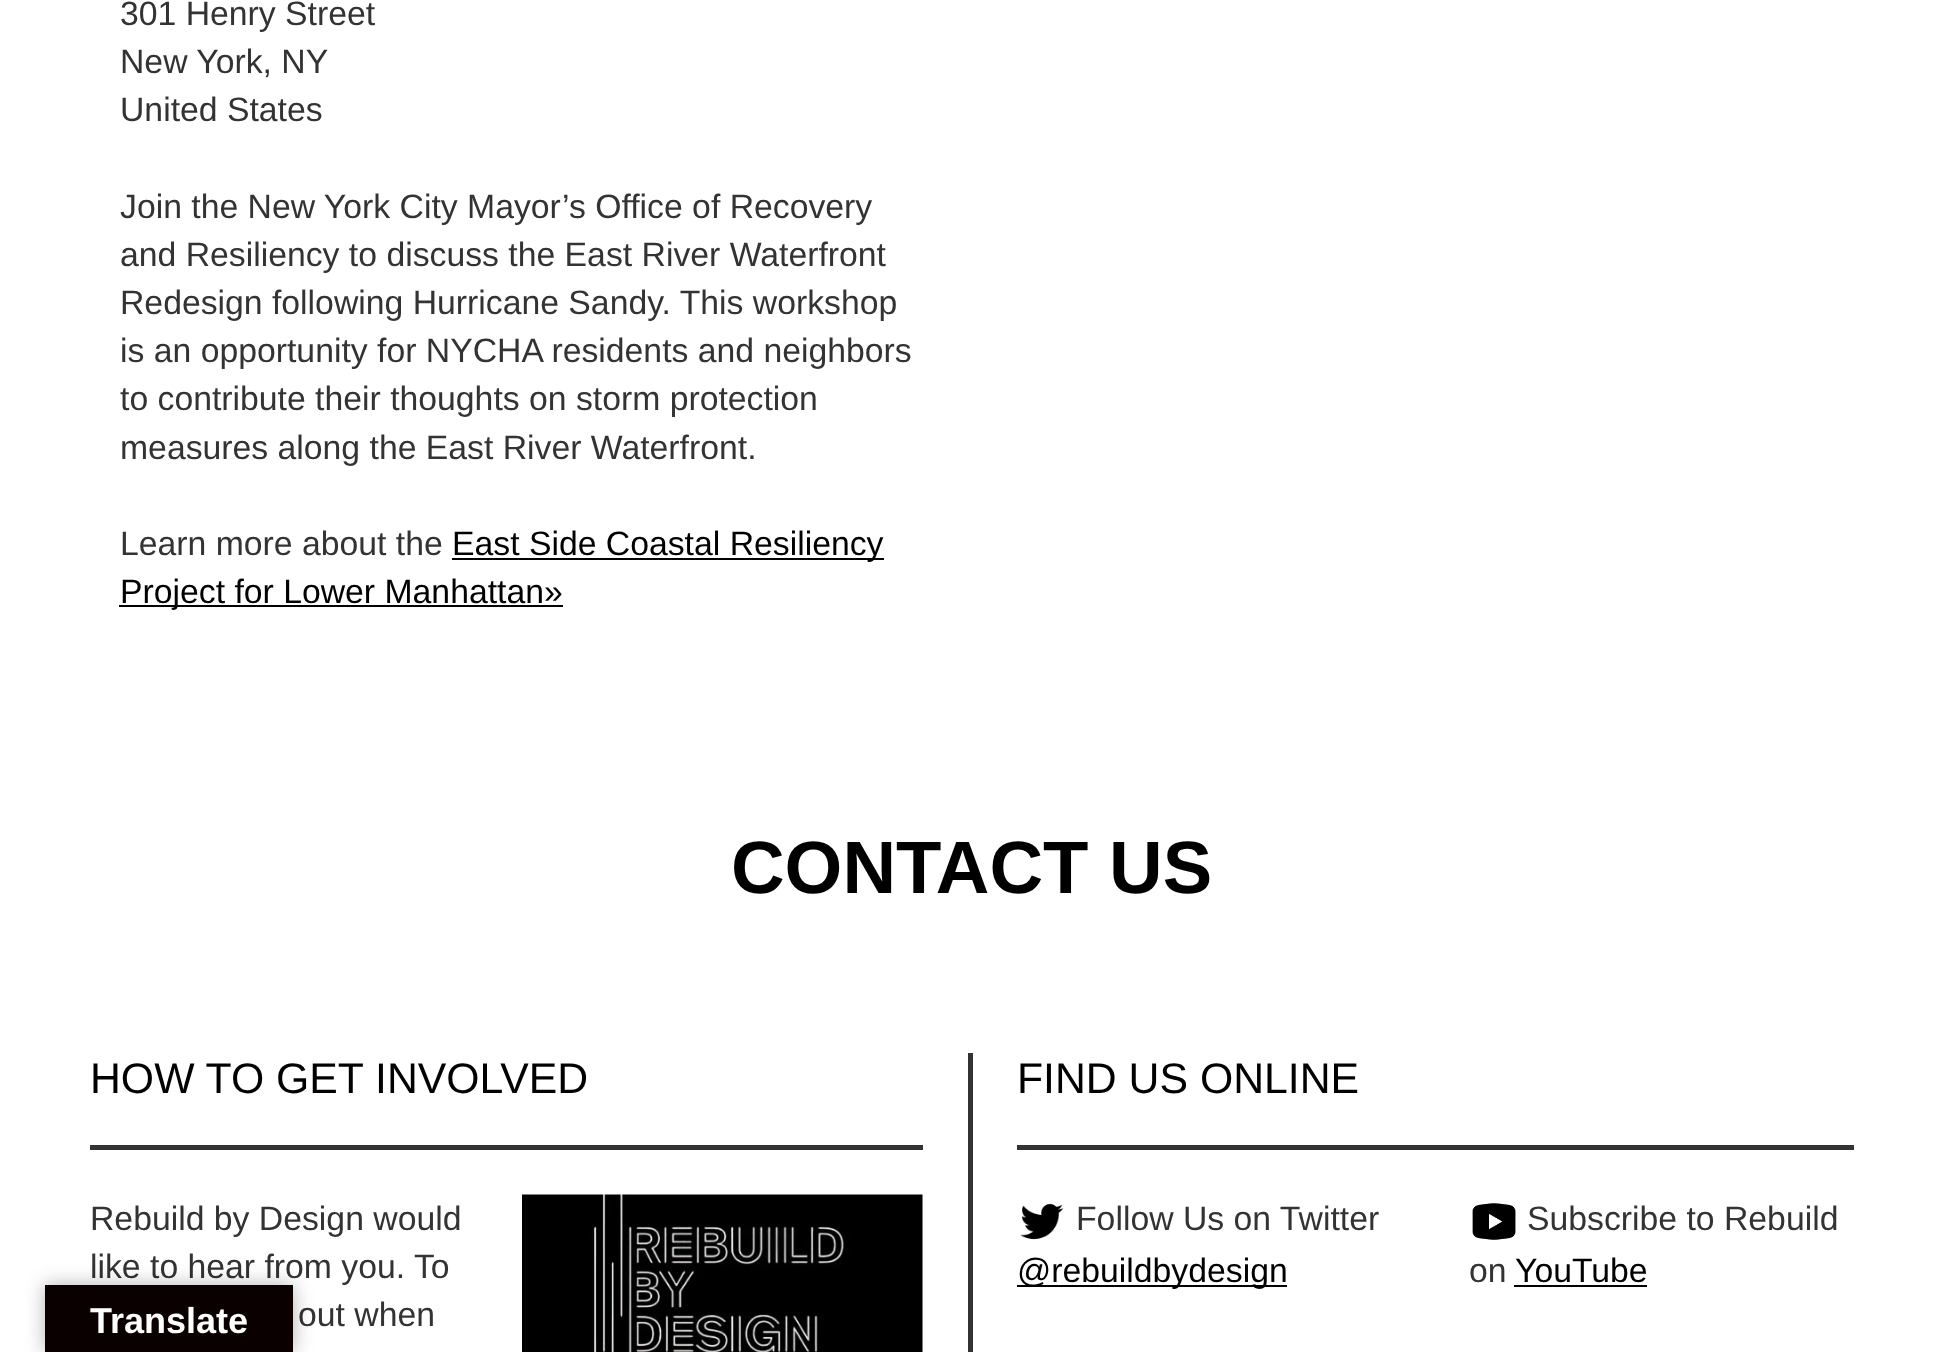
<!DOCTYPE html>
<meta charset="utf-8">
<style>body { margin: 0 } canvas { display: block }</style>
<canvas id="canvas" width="1943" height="1352"></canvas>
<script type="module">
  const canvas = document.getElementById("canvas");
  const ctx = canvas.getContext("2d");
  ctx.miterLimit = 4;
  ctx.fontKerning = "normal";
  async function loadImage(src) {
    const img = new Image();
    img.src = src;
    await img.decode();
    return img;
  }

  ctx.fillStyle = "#ffffff";
  ctx.fillRect(0, 0, 1943, 1352);
  ctx.font = "33.75px Liberation Sans";
  ctx.fillStyle = "#333333";
  ctx.fillText("301 Henry Street", 120, 25);
  ctx.fillText("New York, NY", 120, 73);
  ctx.fillText("United States", 120, 121);
  ctx.fillText("Join the New York City Mayor’s Office of Recovery", 120, 218);
  ctx.fillText("and Resiliency to discuss the East River Waterfront", 120, 266);
  ctx.fillText("Redesign following Hurricane Sandy. This workshop", 120, 314);
  ctx.fillText("is an opportunity for NYCHA residents and neighbors", 120, 362);
  ctx.fillText("to contribute their thoughts on storm protection", 120, 410);
  ctx.fillText("measures along the East River Waterfront.", 120, 459);
  ctx.fillText("Learn more about the", 120, 555);
  ctx.fillStyle = "#000000";
  ctx.fillRect(452, 558, 432, 2);
  ctx.fillText("East Side Coastal Resiliency", 452, 555);
  ctx.fillRect(119, 605, 444, 2);
  ctx.fillText("Project for Lower Manhattan»", 120, 603);
  ctx.font = "bold 74.25px Liberation Sans";
  ctx.fillText("CONTACT US", 731, 893);
  ctx.fillStyle = "#333333";
  ctx.fillRect(968, 1053, 5, 299);
  ctx.fillRect(90, 1145, 833, 5);
  ctx.font = "42.75px Liberation Sans";
  ctx.fillStyle = "#000000";
  ctx.fillText("HOW TO GET INVOLVED", 90, 1093);
  ctx.font = "33.75px Liberation Sans";
  ctx.fillStyle = "#333333";
  ctx.fillText("Rebuild by Design would", 90, 1230);
  ctx.fillText("like to hear from you. To", 90, 1278);
  ctx.fillText("out when", 298, 1326);
  ctx.drawImage(await loadImage("img1.png"), 522, 1194, 401, 158);
  ctx.fillRect(1017, 1145, 837, 5);
  ctx.font = "42.75px Liberation Sans";
  ctx.fillStyle = "#000000";
  ctx.fillText("FIND US ONLINE", 1017, 1093);
  ctx.drawImage(await loadImage("img2.png"), 1020, 1203, 44, 37);
  ctx.font = "33.75px Liberation Sans";
  ctx.fillStyle = "#333333";
  ctx.fillText("Follow Us on Twitter", 1076, 1230);
  ctx.fillStyle = "#000000";
  ctx.fillRect(1017, 1285, 270, 2);
  ctx.fillText("@rebuildbydesign", 1017, 1282);
  ctx.drawImage(await loadImage("img3.png"), 1472, 1203, 44, 37);
  ctx.fillStyle = "#333333";
  ctx.fillText("Subscribe to Rebuild", 1527, 1230);
  ctx.fillText("on", 1469, 1282);
  ctx.fillStyle = "#000000";
  ctx.fillText("YouTube", 1515, 1282);
  ctx.fillRect(1514, 1285, 133, 2);
  ctx.fillStyle = "rgba(0, 0, 0, 0.3)";
  ctx.filter = "blur(10px)";
  ctx.beginPath();
  ctx.rect(45, 1285, 248, 67);
  ctx.fill();
  ctx.filter = "none";
  ctx.fillStyle = "#0a0000";
  ctx.fillRect(45, 1285, 248, 67);
  ctx.font = "bold 36px Liberation Sans";
  ctx.fillStyle = "#ffffff";
  ctx.fillText("Translate", 90, 1333);
</script>
